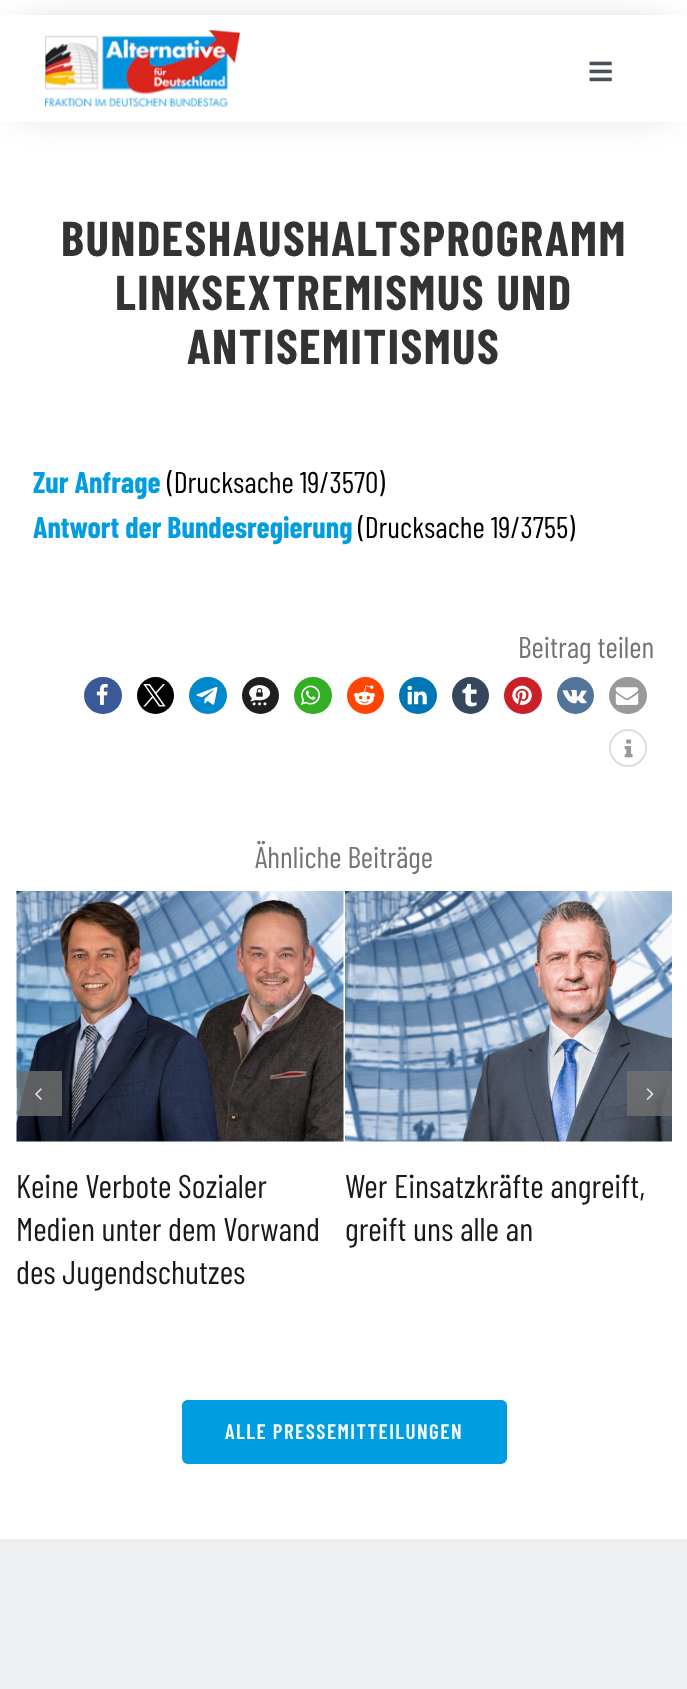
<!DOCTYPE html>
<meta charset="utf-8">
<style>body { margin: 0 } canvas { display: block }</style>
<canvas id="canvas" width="687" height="1689"></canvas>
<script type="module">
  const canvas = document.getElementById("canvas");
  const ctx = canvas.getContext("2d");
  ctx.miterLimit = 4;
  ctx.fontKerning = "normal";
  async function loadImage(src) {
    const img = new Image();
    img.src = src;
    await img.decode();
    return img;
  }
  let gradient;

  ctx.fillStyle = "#ffffff";
  ctx.fillRect(0, 0, 687, 1689);
  ctx.fillStyle = "#a0a0a0";
  ctx.filter = "blur(21px)";
  ctx.beginPath();
  ctx.rect(20, 35, 648, 67);
  ctx.fill();
  ctx.filter = "none";
  ctx.fillStyle = "#ffffff";
  ctx.fillRect(0, 15, 687, 107);
  ctx.drawImage(await loadImage("img1.png"), 45, 30, 195, 77);
  ctx.drawImage(await loadImage("img2.png"), 589, 61, 23, 21);
  ctx.letterSpacing = "1.5px";
  ctx.font = "bold 49px Barlow Condensed";
  ctx.fillStyle = "#333333";
  ctx.fillText("BUNDESHAUSHALTSPROGRAMM", 61, 256);
  ctx.fillText("LINKSEXTREMISMUS UND", 115, 310);
  ctx.fillText("ANTISEMITISMUS", 187, 364);
  ctx.letterSpacing = "0px";
  ctx.font = "bold 30px Barlow Condensed";
  ctx.fillStyle = "#009ee0";
  ctx.fillText("Zur Anfrage", 33, 493);
  ctx.font = "30px Barlow Condensed";
  ctx.fillStyle = "#000000";
  ctx.fillText("(Drucksache 19/3570)", 167, 493);
  ctx.font = "bold 30px Barlow Condensed";
  ctx.fillStyle = "#009ee0";
  ctx.fillText("Antwort der Bundesregierung", 33, 538);
  ctx.font = "30px Barlow Condensed";
  ctx.fillStyle = "#000000";
  ctx.fillText("(Drucksache 19/3755)", 358, 538);
  ctx.fillStyle = "#747474";
  ctx.fillText("Beitrag teilen", 518, 658);
  ctx.fillStyle = "#3b5998";
  ctx.beginPath();
  ctx.roundRect(84, 677, 38, 37, 18.5);
  ctx.fill();
  ctx.drawImage(await loadImage("img3.png"), 96, 683, 12, 22);
  ctx.fillStyle = "#000000";
  ctx.beginPath();
  ctx.arc(155.5, 695.5, 18.5, 0, Math.PI * 2);
  ctx.fill();
  ctx.drawImage(await loadImage("img4.png"), 143, 684, 23, 23);
  ctx.fillStyle = "#0088cc";
  ctx.beginPath();
  ctx.roundRect(189, 677, 38, 37, 18.5);
  ctx.fill();
  ctx.drawImage(await loadImage("img5.png"), 196, 686, 22, 19);
  ctx.fillStyle = "#1f1f1f";
  ctx.beginPath();
  ctx.arc(260.5, 695.5, 18.5, 0, Math.PI * 2);
  ctx.fill();
  ctx.drawImage(await loadImage("img6.png"), 249, 685, 22, 21);
  ctx.fillStyle = "#34af23";
  ctx.beginPath();
  ctx.roundRect(294, 677, 38, 37, 18.5);
  ctx.fill();
  ctx.drawImage(await loadImage("img7.png"), 300, 685, 21, 20);
  ctx.fillStyle = "#ff4500";
  ctx.beginPath();
  ctx.arc(365.5, 695.5, 18.5, 0, Math.PI * 2);
  ctx.fill();
  ctx.drawImage(await loadImage("img8.png"), 354, 685, 21, 21);
  ctx.fillStyle = "#0077b5";
  ctx.beginPath();
  ctx.roundRect(399, 677, 38, 37, 18.5);
  ctx.fill();
  ctx.drawImage(await loadImage("img9.png"), 407, 685, 20, 20);
  ctx.fillStyle = "#36465d";
  ctx.beginPath();
  ctx.arc(470.5, 695.5, 18.5, 0, Math.PI * 2);
  ctx.fill();
  ctx.drawImage(await loadImage("img10.png"), 462, 683, 15, 24);
  ctx.fillStyle = "#cb2027";
  ctx.beginPath();
  ctx.roundRect(504, 677, 38, 37, 18.5);
  ctx.fill();
  ctx.drawImage(await loadImage("img11.png"), 512, 685, 20, 20);
  ctx.fillStyle = "#527498";
  ctx.beginPath();
  ctx.arc(575.5, 695.5, 18.5, 0, Math.PI * 2);
  ctx.fill();
  ctx.drawImage(await loadImage("img12.png"), 562, 689, 25, 15);
  ctx.fillStyle = "#999999";
  ctx.beginPath();
  ctx.roundRect(609, 677, 38, 37, 18.5);
  ctx.fill();
  ctx.drawImage(await loadImage("img13.png"), 615, 687, 24, 18);
  ctx.beginPath();
  ctx.arc(628, 748, 18, 0, Math.PI * 2);
  ctx.strokeStyle = "#dddddd";
  ctx.lineWidth = 2;
  ctx.stroke();
  ctx.drawImage(await loadImage("img14.png"), 624, 739, 9, 19);
  ctx.fillStyle = "#747474";
  ctx.fillText("Ähnliche Beiträge", 255, 868);
  ctx.drawImage(await loadImage("img17.png"), 16, 891, 328, 251);
  ctx.fillStyle = "rgba(112, 112, 112, 0.8)";
  ctx.fillRect(17, 1071, 45, 45);
  ctx.drawImage(await loadImage("img15.png"), 35, 1088, 7, 12);
  ctx.drawImage(await loadImage("img18.png"), 345, 891, 327, 251);
  ctx.fillRect(627, 1071, 45, 45);
  ctx.drawImage(await loadImage("img16.png"), 646, 1088, 8, 12);
  ctx.font = "33px Barlow Condensed";
  ctx.fillStyle = "#191919";
  ctx.fillText("Keine Verbote Sozialer", 16, 1198);
  ctx.fillText("Medien unter dem Vorwand", 16, 1241);
  ctx.fillText("des Jugendschutzes", 16, 1284);
  ctx.fillText("Wer Einsatzkräfte angreift,", 345, 1198);
  ctx.fillText("greift uns alle an", 345, 1241);
  ctx.fillStyle = "#009ee0";
  ctx.beginPath();
  ctx.roundRect(182, 1400, 325, 64, 6);
  ctx.fill();
  gradient = ctx.createLinearGradient(344, 1400, 344, 1464);
  gradient.addColorStop(0, "#009ee0");
  gradient.addColorStop(1, "rgba(0, 158, 224, 0)");
  ctx.fillStyle = gradient;
  ctx.beginPath();
  ctx.roundRect(182, 1400, 325, 64, 6);
  ctx.fill();
  ctx.letterSpacing = "1.5px";
  ctx.font = "600 21px Barlow Condensed";
  ctx.fillStyle = "#ffffff";
  ctx.fillText("ALLE PRESSEMITTEILUNGEN", 225, 1439);
  ctx.fillStyle = "#eef0f1";
  ctx.fillRect(0, 1539, 687, 150);
</script>
